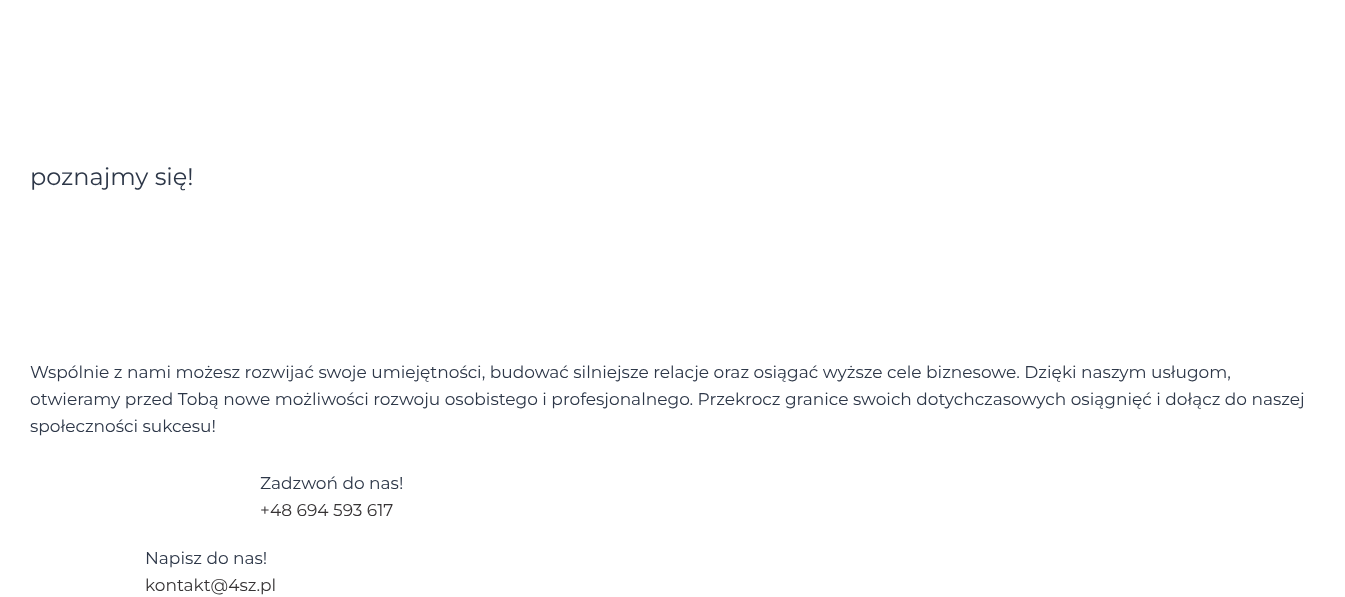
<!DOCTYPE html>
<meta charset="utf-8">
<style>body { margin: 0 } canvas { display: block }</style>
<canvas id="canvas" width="1345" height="597"></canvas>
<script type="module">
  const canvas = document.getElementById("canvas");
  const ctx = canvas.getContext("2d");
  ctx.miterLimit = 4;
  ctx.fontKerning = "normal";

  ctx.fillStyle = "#ffffff";
  ctx.fillRect(0, 0, 1345, 597);
  ctx.font = "24px Montserrat";
  ctx.fillStyle = "#2d3748";
  ctx.fillText("poznajmy się!", 30, 185);
  ctx.font = "17px Montserrat";
  ctx.fillText("Wspólnie z nami możesz rozwijać swoje umiejętności, budować silniejsze relacje oraz osiągać wyższe cele biznesowe. Dzięki naszym usługom,", 30, 378);
  ctx.fillText("otwieramy przed Tobą nowe możliwości rozwoju osobistego i profesjonalnego. Przekrocz granice swoich dotychczasowych osiągnięć i dołącz do naszej", 30, 405);
  ctx.fillText("społeczności sukcesu!", 30, 432);
  ctx.fillText("Zadzwoń do nas!", 260, 489);
  ctx.fillStyle = "#363334";
  ctx.fillText("+48 694 593 617", 260, 516);
  ctx.fillStyle = "#2d3748";
  ctx.fillText("Napisz do nas!", 145, 564);
  ctx.fillStyle = "#363334";
  ctx.fillText("kontakt@4sz.pl", 145, 591);
</script>
